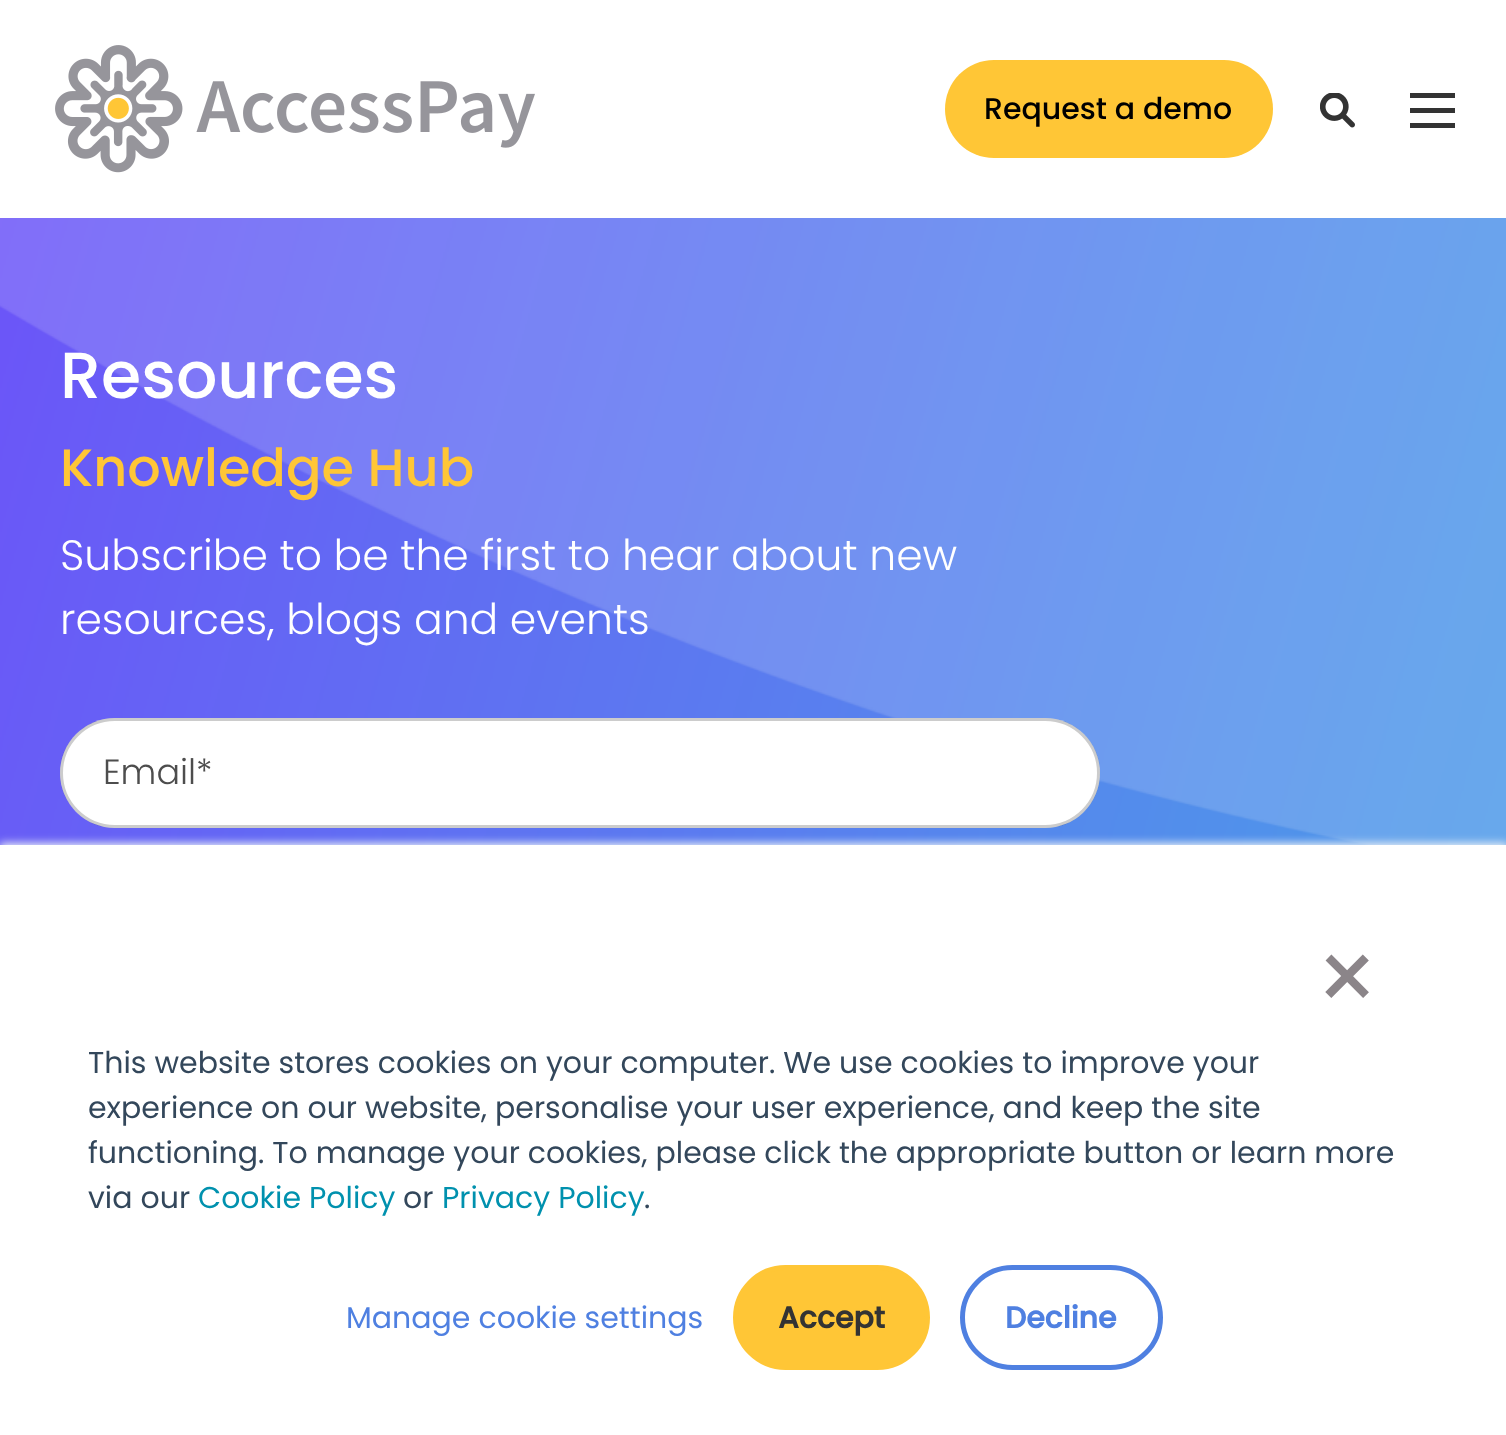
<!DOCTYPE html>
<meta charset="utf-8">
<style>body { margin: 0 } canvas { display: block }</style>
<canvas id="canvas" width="1506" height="1435"></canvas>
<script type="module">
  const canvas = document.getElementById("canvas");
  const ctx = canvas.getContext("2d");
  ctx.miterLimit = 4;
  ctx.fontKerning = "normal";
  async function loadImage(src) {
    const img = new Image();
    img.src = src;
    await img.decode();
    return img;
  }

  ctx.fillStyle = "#ffffff";
  ctx.fillRect(0, 0, 1506, 1435);
  ctx.drawImage(await loadImage("img1.png"), 55, 45, 480, 128);
  ctx.fillStyle = "#ffc636";
  ctx.beginPath();
  ctx.roundRect(945, 60, 328, 98, 49);
  ctx.fill();
  ctx.font = "500 30px Poppins";
  ctx.fillStyle = "#000000";
  ctx.fillText("Request a demo", 984, 119);
  ctx.drawImage(await loadImage("img2.png"), 1320, 93, 35, 35);
  ctx.fillStyle = "#333333";
  ctx.fillRect(1410, 93, 45, 5);
  ctx.fillRect(1410, 108, 45, 5);
  ctx.fillRect(1410, 123, 45, 5);
  ctx.drawImage(await loadImage("img3.png"), 0, 218, 1506, 627);
  ctx.font = "500 65px Poppins";
  ctx.fillStyle = "#ffffff";
  ctx.fillText("Resources", 60, 398);
  ctx.font = "500 52.5px Poppins";
  ctx.fillStyle = "#ffc636";
  ctx.fillText("Knowledge Hub", 60, 486);
  ctx.font = "300 42.5px Poppins";
  ctx.fillStyle = "#ffffff";
  ctx.fillText("Subscribe to be the first to hear about new", 60, 570);
  ctx.fillText("resources, blogs and events", 60, 634);
  ctx.beginPath();
  ctx.roundRect(60, 718, 1040, 110, 55);
  ctx.fill();
  ctx.beginPath();
  ctx.roundRect(61.5, 719.5, 1037, 107, 53.5);
  ctx.strokeStyle = "rgba(0, 0, 0, 0.2)";
  ctx.lineWidth = 3;
  ctx.stroke();
  ctx.font = "300 35px Poppins";
  ctx.fillStyle = "#4d4d4d";
  ctx.fillText("Email*", 103, 784);
  ctx.fillStyle = "#eaf0f6";
  ctx.filter = "blur(4px)";
  ctx.beginPath();
  ctx.rect(0, 843, 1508, 590);
  ctx.fill();
  ctx.filter = "none";
  ctx.fillStyle = "#ffffff";
  ctx.fillRect(0, 845, 1506, 590);
  ctx.font = "100px Poppins";
  ctx.fillStyle = "#8b8589";
  ctx.fillText("×", 1315, 1013);
  ctx.font = "30px Poppins";
  ctx.fillStyle = "#33475b";
  ctx.fillText("This website stores cookies on your computer. We use cookies to improve your", 88, 1073);
  ctx.fillText("experience on our website, personalise your user experience, and keep the site", 88, 1118);
  ctx.fillText("functioning. To manage your cookies, please click the appropriate button or learn more", 88, 1163);
  ctx.fillText("via our", 88, 1208);
  ctx.fillStyle = "#0091ae";
  ctx.fillText("Cookie Policy", 198, 1208);
  ctx.fillStyle = "#33475b";
  ctx.fillText("or", 403, 1208);
  ctx.fillStyle = "#0091ae";
  ctx.fillText("Privacy Policy", 442, 1208);
  ctx.fillStyle = "#33475b";
  ctx.fillText(".", 644, 1208);
  ctx.fillStyle = "#4f80e1";
  ctx.fillText("Manage cookie settings", 346, 1328);
  ctx.fillStyle = "#ffc636";
  ctx.beginPath();
  ctx.roundRect(735.5, 1267.5, 192, 100, 50);
  ctx.fill();
  ctx.strokeStyle = "#ffc636";
  ctx.lineWidth = 5;
  ctx.stroke();
  ctx.font = "bold 30px Poppins";
  ctx.fillStyle = "#333333";
  ctx.fillText("Accept", 778, 1328);
  ctx.beginPath();
  ctx.roundRect(962.5, 1267.5, 198, 100, 50);
  ctx.strokeStyle = "#4f80e1";
  ctx.stroke();
  ctx.fillStyle = "#4f80e1";
  ctx.fillText("Decline", 1005, 1328);
</script>
